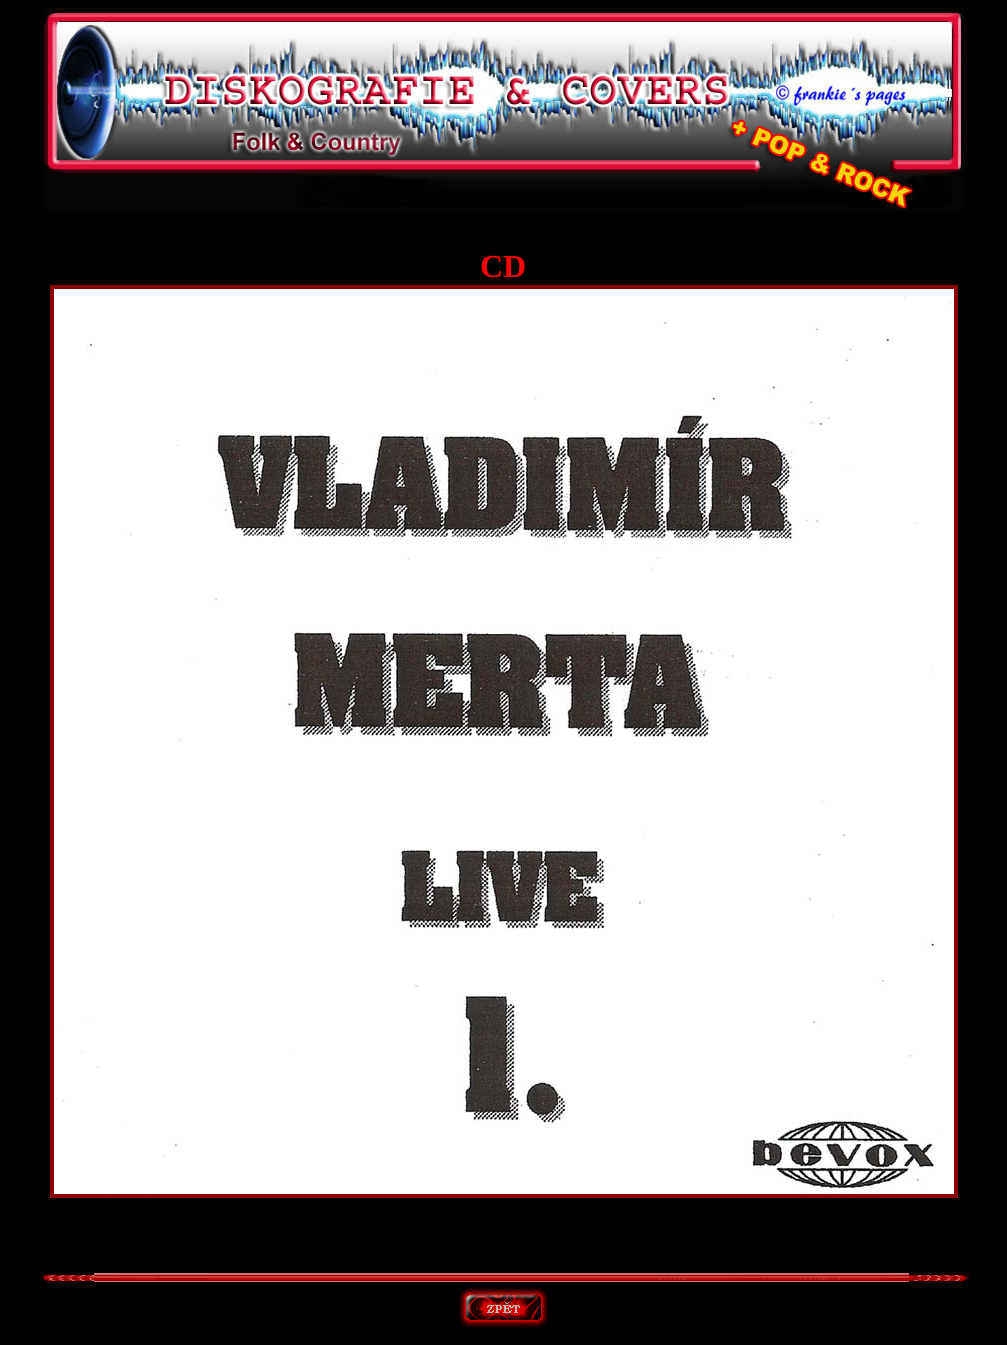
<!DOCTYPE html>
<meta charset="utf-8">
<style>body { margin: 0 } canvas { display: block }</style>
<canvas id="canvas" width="1007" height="1345"></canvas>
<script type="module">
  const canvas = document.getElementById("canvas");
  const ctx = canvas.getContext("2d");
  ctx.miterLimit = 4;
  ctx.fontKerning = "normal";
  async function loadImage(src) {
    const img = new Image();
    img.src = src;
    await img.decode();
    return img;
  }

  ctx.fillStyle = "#000000";
  ctx.fillRect(0, 0, 1007, 1345);
  ctx.drawImage(await loadImage("img1.png"), 44, 8, 920, 204);
  ctx.font = "bold 32px Liberation Serif";
  ctx.fillStyle = "#ff0000";
  ctx.fillText("CD", 480, 277);
  ctx.strokeStyle = "#8b0000";
  ctx.lineWidth = 4;
  ctx.strokeRect(52, 287, 904, 909);
  ctx.drawImage(await loadImage("img2.png"), 54, 289, 900, 905);
  ctx.drawImage(await loadImage("img3.png"), 42, 1273, 927, 9);
  ctx.drawImage(await loadImage("img4.png"), 458, 1287, 91, 41);
</script>
